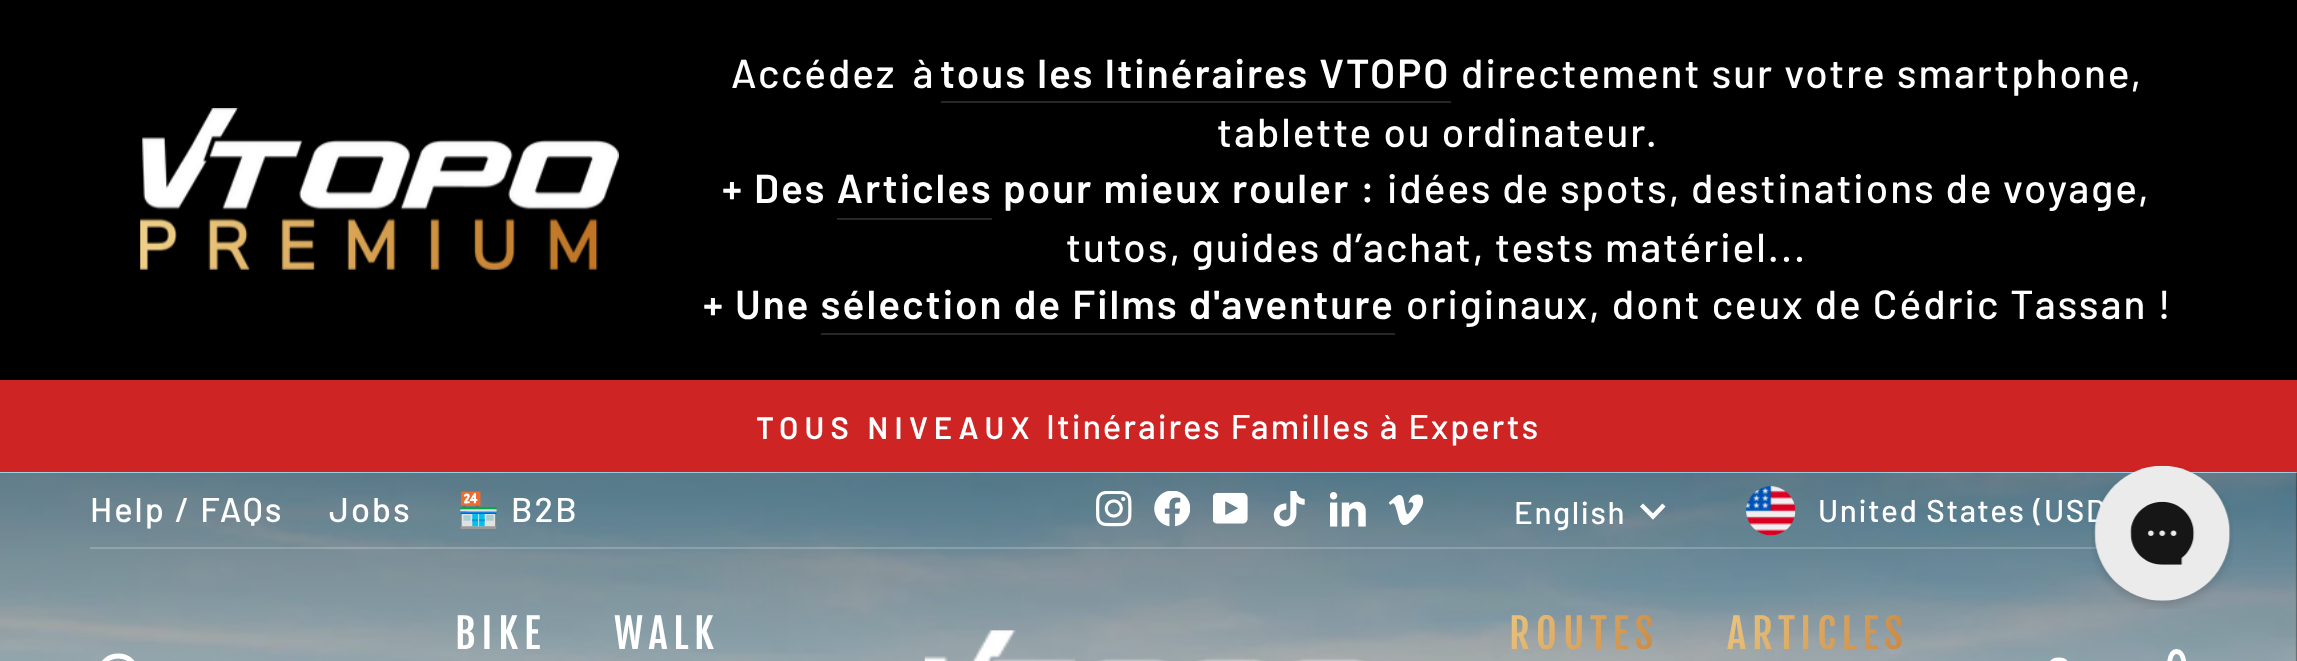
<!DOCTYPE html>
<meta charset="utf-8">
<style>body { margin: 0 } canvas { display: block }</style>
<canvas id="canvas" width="2297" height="661"></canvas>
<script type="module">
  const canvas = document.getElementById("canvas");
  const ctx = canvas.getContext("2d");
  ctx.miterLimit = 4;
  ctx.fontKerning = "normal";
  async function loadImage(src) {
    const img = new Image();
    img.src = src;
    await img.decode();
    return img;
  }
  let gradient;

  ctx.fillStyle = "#000000";
  ctx.fillRect(0, 0, 2297, 661);
  ctx.drawImage(await loadImage("img1.png"), 140, 108, 479, 162);
  ctx.letterSpacing = "2px";
  ctx.wordSpacing = "6px";
  ctx.font = "500 40.5px Barlow";
  ctx.fillStyle = "#ffffff";
  ctx.fillText("Accédez à", 731, 88);
  ctx.fillStyle = "#262626";
  ctx.fillRect(941, 101, 510, 2);
  ctx.wordSpacing = "0px";
  ctx.font = "600 40.5px Barlow";
  ctx.fillStyle = "#ffffff";
  ctx.fillText("tous les Itinéraires VTOPO", 940, 88);
  ctx.font = "500 40.5px Barlow";
  ctx.fillText("directement sur votre smartphone,", 1461, 88);
  ctx.fillText("tablette ou ordinateur.", 1217, 147);
  ctx.font = "600 40.5px Barlow";
  ctx.fillText("+ Des Articles", 722, 203);
  ctx.fillText("pour mieux rouler :", 1003, 203);
  ctx.fillStyle = "#262626";
  ctx.fillRect(837, 218, 155, 2);
  ctx.wordSpacing = "-0.5px";
  ctx.font = "500 40.5px Barlow";
  ctx.fillStyle = "#ffffff";
  ctx.fillText("idées de spots, destinations de voyage,", 1387, 203);
  ctx.fillText("tutos, guides d’achat, tests matériel...", 1066, 262);
  ctx.wordSpacing = "0px";
  ctx.font = "600 40.5px Barlow";
  ctx.fillText("+ Une sélection de Films d'aventure", 703, 319);
  ctx.fillStyle = "#262626";
  ctx.fillRect(821, 333, 574, 2);
  ctx.font = "500 40.5px Barlow";
  ctx.fillStyle = "#ffffff";
  ctx.fillText("originaux, dont ceux de Cédric Tassan !", 1406, 319);
  ctx.fillStyle = "#cf2424";
  ctx.fillRect(0, 380, 2297, 93);
  ctx.letterSpacing = "6.25px";
  ctx.font = "600 31px Barlow";
  ctx.fillStyle = "#ffffff";
  ctx.fillText("TOUS NIVEAUX", 756, 439);
  ctx.letterSpacing = "2px";
  ctx.font = "500 34.4px Barlow";
  ctx.fillText("Itinéraires Familles à Experts", 1046, 439);
  ctx.drawImage(await loadImage("img2.png"), 0, 472, 2297, 189);
  gradient = ctx.createLinearGradient(1149, 472, 1149, 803);
  gradient.addColorStop(0, "rgba(0, 0, 0, 0.3)");
  gradient.addColorStop(1, "rgba(0, 0, 0, 0)");
  ctx.fillStyle = gradient;
  ctx.fillRect(0, 473, 2297, 188);
  ctx.fillStyle = "rgba(255, 255, 255, 0.2)";
  ctx.fillRect(90, 547, 2008, 2);
  ctx.fillStyle = "#ffffff";
  ctx.fillText("Help / FAQs", 90, 522);
  ctx.fillText("Jobs", 329, 522);
  ctx.font = "34.4px Noto Color Emoji";
  ctx.fillText("🏪", 457, 522);
  ctx.font = "500 34.4px Barlow";
  ctx.fillText("B2B", 511, 522);
  ctx.drawImage(await loadImage("img3.png"), 1096, 491, 36, 36);
  ctx.drawImage(await loadImage("img4.png"), 1154, 491, 36, 36);
  ctx.drawImage(await loadImage("img5.png"), 1213, 492, 35, 32);
  ctx.drawImage(await loadImage("img6.png"), 1273, 491, 32, 36);
  ctx.drawImage(await loadImage("img7.png"), 1330, 492, 36, 35);
  ctx.drawImage(await loadImage("img8.png"), 1388, 494, 36, 32);
  ctx.letterSpacing = "1.6px";
  ctx.font = "500 31.5px Barlow";
  ctx.fillText("English", 1514, 524);
  ctx.beginPath();
  ctx.moveTo(1641.5, 505);
  ctx.lineTo(1653, 516.5);
  ctx.lineTo(1664, 505);
  ctx.strokeStyle = "#ffffff";
  ctx.lineWidth = 4.4;
  ctx.stroke();
  ctx.drawImage(await loadImage("img9.png"), 1746, 486, 50, 50);
  ctx.fillText("United States (USD", 1818, 522);
  ctx.letterSpacing = "6px";
  ctx.font = "40.5px Fjalla One";
  ctx.fillText("BIKE", 455, 649);
  ctx.fillText("WALK", 614, 649);
  ctx.drawImage(await loadImage("img10.png"), 924, 630, 441, 31);
  gradient = ctx.createLinearGradient(1485, 578, 1684, 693);
  gradient.addColorStop(0, "#f1d18b");
  gradient.addColorStop(1, "#c27932");
  ctx.fillStyle = gradient;
  ctx.fillText("ROUTES", 1509, 649);
  gradient = ctx.createLinearGradient(1707, 571, 1930, 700);
  gradient.addColorStop(0, "#f1d18b");
  gradient.addColorStop(1, "#c27932");
  ctx.fillStyle = gradient;
  ctx.fillText("ARTICLES", 1727, 649);
  ctx.beginPath();
  ctx.moveTo(136.5, 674);
  ctx.bezierCurveTo(136.5, 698, 100, 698, 100, 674);
  ctx.bezierCurveTo(100, 650, 136.5, 650, 136.5, 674);
  ctx.closePath();
  ctx.moveTo(143, 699);
  ctx.lineTo(131.5, 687);
  ctx.lineWidth = 4.9;
  ctx.stroke();
  ctx.beginPath();
  ctx.moveTo(2061.5, 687);
  ctx.lineTo(2061.5, 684.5);
  ctx.bezierCurveTo(2065, 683, 2067.5, 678, 2067.5, 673.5);
  ctx.bezierCurveTo(2067.5, 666, 2067.5, 660, 2059, 660);
  ctx.bezierCurveTo(2050, 660, 2050, 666, 2050, 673.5);
  ctx.bezierCurveTo(2050, 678, 2052.5, 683, 2056, 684.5);
  ctx.lineTo(2056, 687);
  ctx.bezierCurveTo(2046, 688, 2038, 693, 2038, 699);
  ctx.lineTo(2079.5, 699);
  ctx.bezierCurveTo(2079.5, 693, 2071.5, 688, 2061.5, 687);
  ctx.closePath();
  ctx.stroke();
  ctx.beginPath();
  ctx.moveTo(2169, 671.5);
  ctx.bezierCurveTo(2169, 656, 2172.5, 651.5, 2176.5, 651.5);
  ctx.bezierCurveTo(2181, 651.5, 2184.5, 656, 2184.5, 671.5);
  ctx.stroke();
  ctx.drawImage(await loadImage("img11.png"), 2091, 465, 142, 144);
</script>
